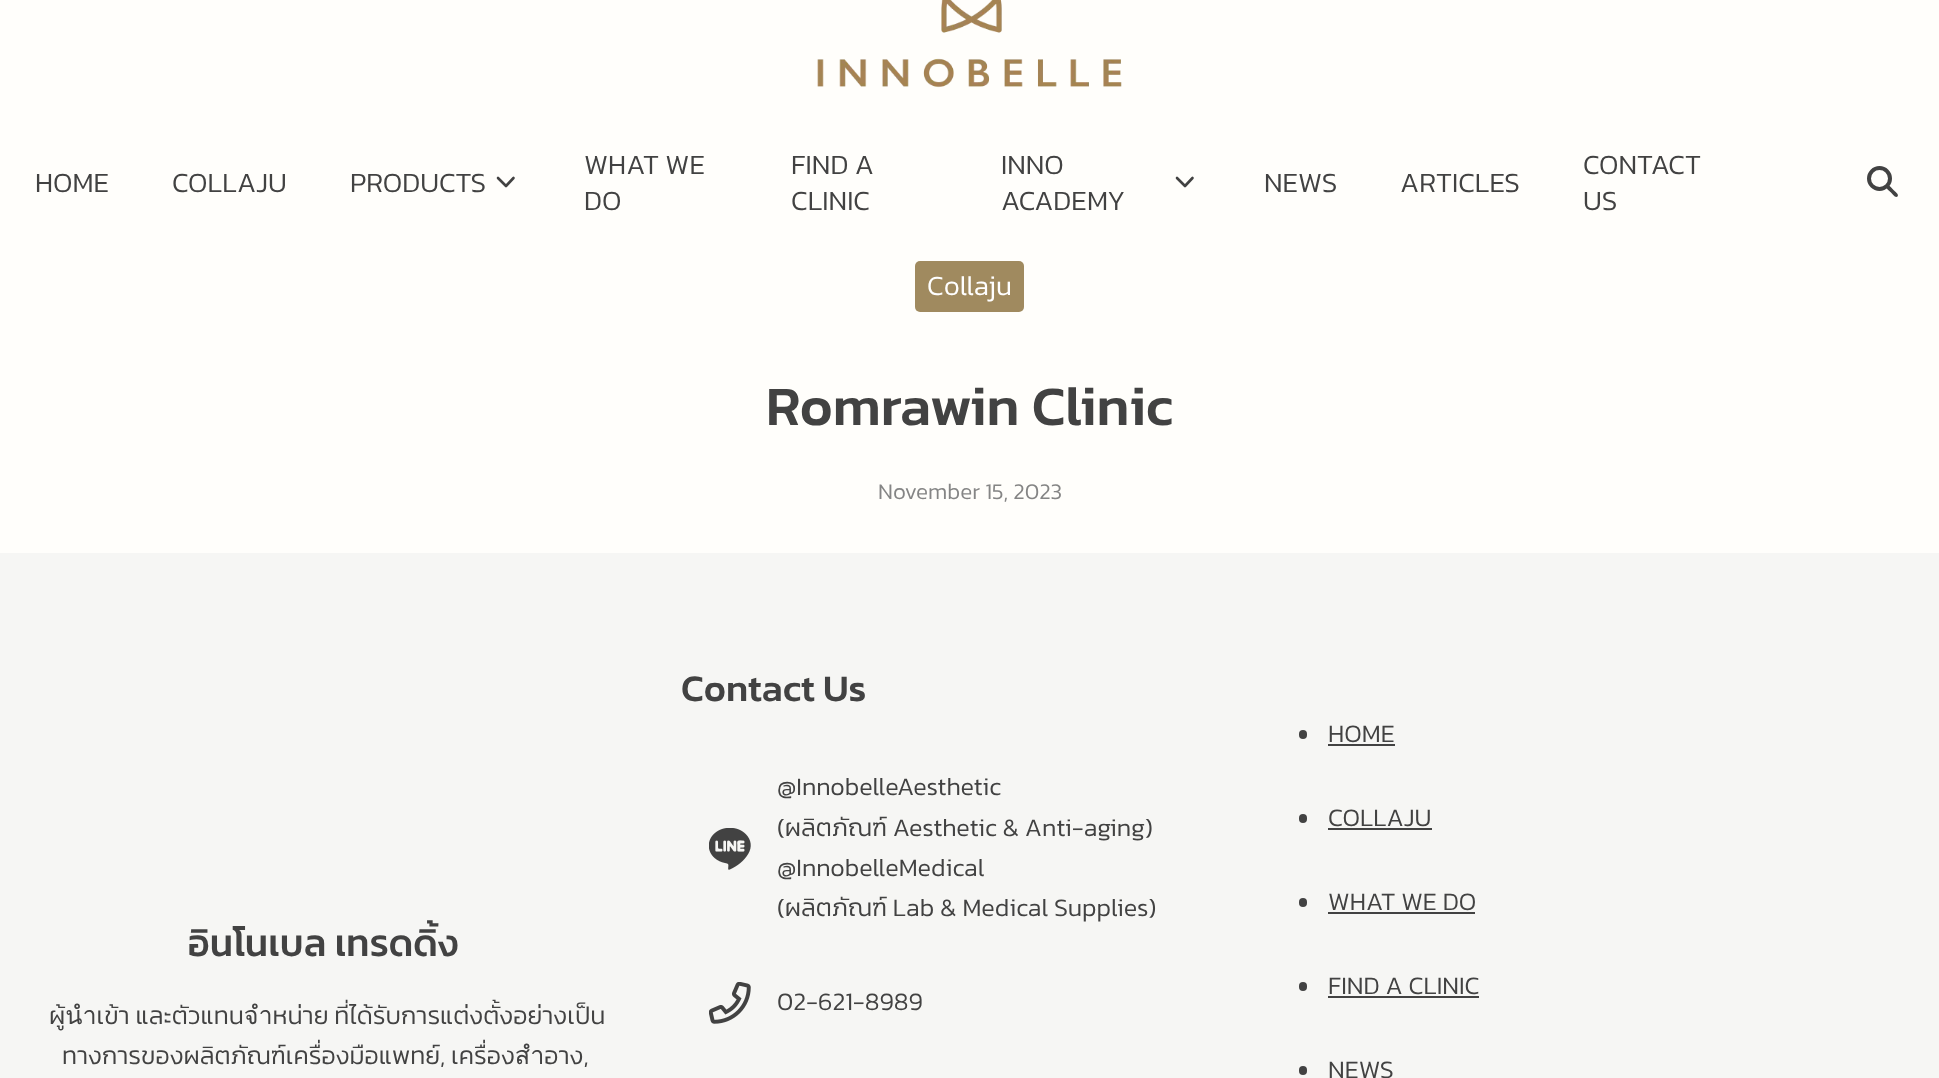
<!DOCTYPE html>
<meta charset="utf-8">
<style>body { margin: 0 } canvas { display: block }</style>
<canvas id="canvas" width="1939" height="1078"></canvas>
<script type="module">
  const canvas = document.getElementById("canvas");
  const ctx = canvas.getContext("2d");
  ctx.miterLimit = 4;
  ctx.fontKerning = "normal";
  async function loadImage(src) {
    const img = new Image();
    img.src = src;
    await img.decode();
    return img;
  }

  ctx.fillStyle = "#fffefb";
  ctx.fillRect(0, 0, 1939, 1078);
  ctx.drawImage(await loadImage("img1.png"), 817, 0, 305, 88);
  ctx.font = "300 28px Kanit";
  ctx.fillStyle = "#424242";
  ctx.fillText("HOME", 35, 192);
  ctx.fillText("COLLAJU", 172, 192);
  ctx.fillText("PRODUCTS", 350, 192);
  ctx.beginPath();
  ctx.moveTo(498, 178);
  ctx.lineTo(506, 186);
  ctx.lineTo(513.5, 178);
  ctx.strokeStyle = "#424242";
  ctx.lineWidth = 2.6;
  ctx.lineCap = "round";
  ctx.lineJoin = "round";
  ctx.stroke();
  ctx.fillText("WHAT WE", 584, 174);
  ctx.fillText("DO", 584, 210);
  ctx.fillText("FIND A", 791, 174);
  ctx.fillText("CLINIC", 791, 210);
  ctx.fillText("INNO", 1001, 174);
  ctx.fillText("ACADEMY", 1001, 210);
  ctx.beginPath();
  ctx.moveTo(1177, 178);
  ctx.lineTo(1185, 186);
  ctx.lineTo(1192.5, 178);
  ctx.stroke();
  ctx.fillText("NEWS", 1264, 192);
  ctx.fillText("ARTICLES", 1400, 192);
  ctx.fillText("CONTACT", 1583, 174);
  ctx.fillText("US", 1583, 210);
  ctx.beginPath();
  ctx.moveTo(1887, 186);
  ctx.bezierCurveTo(1889, 184, 1892.5, 189, 1893.5, 190);
  ctx.bezierCurveTo(1894.5, 191, 1899.5, 194.5, 1897.5, 196.5);
  ctx.bezierCurveTo(1895.5, 198.5, 1892, 193.5, 1891, 192.5);
  ctx.bezierCurveTo(1890, 191.5, 1885, 188, 1887, 186);
  ctx.closePath();
  ctx.fill();
  ctx.beginPath();
  ctx.arc(1879.5, 178.5, 10.5, 0, Math.PI * 2);
  ctx.lineWidth = 4;
  ctx.stroke();
  ctx.fillStyle = "#a08a5f";
  ctx.beginPath();
  ctx.roundRect(915, 261, 109, 51, 5);
  ctx.fill();
  ctx.fillStyle = "#ffffff";
  ctx.fillText("Collaju", 927, 295);
  ctx.font = "500 56px Kanit";
  ctx.fillStyle = "#424242";
  ctx.fillText("Romrawin Clinic", 766, 425);
  ctx.font = "300 22.5px Kanit";
  ctx.fillStyle = "#858585";
  ctx.fillText("November 15, 2023", 878, 499);
  ctx.fillStyle = "#f6f6f4";
  ctx.fillRect(0, 553, 1939, 525);
  ctx.font = "500 37.75px Kanit";
  ctx.fillStyle = "#424242";
  ctx.fillText("อินโนเบล เทรดดิ้ง", 188, 956);
  ctx.font = "300 25.2px Kanit";
  ctx.fillText("ผู้นำเข้า และตัวแทนจำหน่าย ที่ได้รับการแต่งตั้งอย่างเป็น", 49, 1024);
  ctx.fillText("ทางการของผลิตภัณฑ์เครื่องมือแพทย์, เครื่องสำอาง,", 62, 1064);
  ctx.font = "500 37.75px Kanit";
  ctx.fillText("Contact Us", 681, 701);
  ctx.drawImage(await loadImage("img2.png"), 709, 828, 42, 42);
  ctx.font = "300 25.2px Kanit";
  ctx.fillText("@InnobelleAesthetic", 777, 795);
  ctx.fillText("(ผลิตภัณฑ์ Aesthetic & Anti-aging)", 777, 836);
  ctx.fillText("@InnobelleMedical", 777, 876);
  ctx.fillText("(ผลิตภัณฑ์ Lab & Medical Supplies)", 777, 916);
  ctx.drawImage(await loadImage("img3.png"), 709, 982, 42, 42);
  ctx.fillText("02-621-8989", 777, 1010);
  ctx.beginPath();
  ctx.roundRect(1299, 730, 8, 9, 4);
  ctx.fill();
  ctx.fillText("HOME", 1328, 742);
  ctx.fillRect(1328, 744, 67, 2);
  ctx.beginPath();
  ctx.roundRect(1299, 814, 8, 9, 4);
  ctx.fill();
  ctx.fillText("COLLAJU", 1328, 826);
  ctx.fillRect(1328, 828, 104, 2);
  ctx.beginPath();
  ctx.roundRect(1299, 898, 8, 9, 4);
  ctx.fill();
  ctx.fillText("WHAT WE DO", 1328, 910);
  ctx.fillRect(1328, 912, 147, 2);
  ctx.beginPath();
  ctx.roundRect(1299, 982, 8, 9, 4);
  ctx.fill();
  ctx.fillText("FIND A CLINIC", 1328, 994);
  ctx.fillRect(1328, 996, 151, 2);
  ctx.beginPath();
  ctx.roundRect(1299, 1066, 8, 9, 4);
  ctx.fill();
  ctx.fillText("NEWS", 1328, 1078);
</script>
